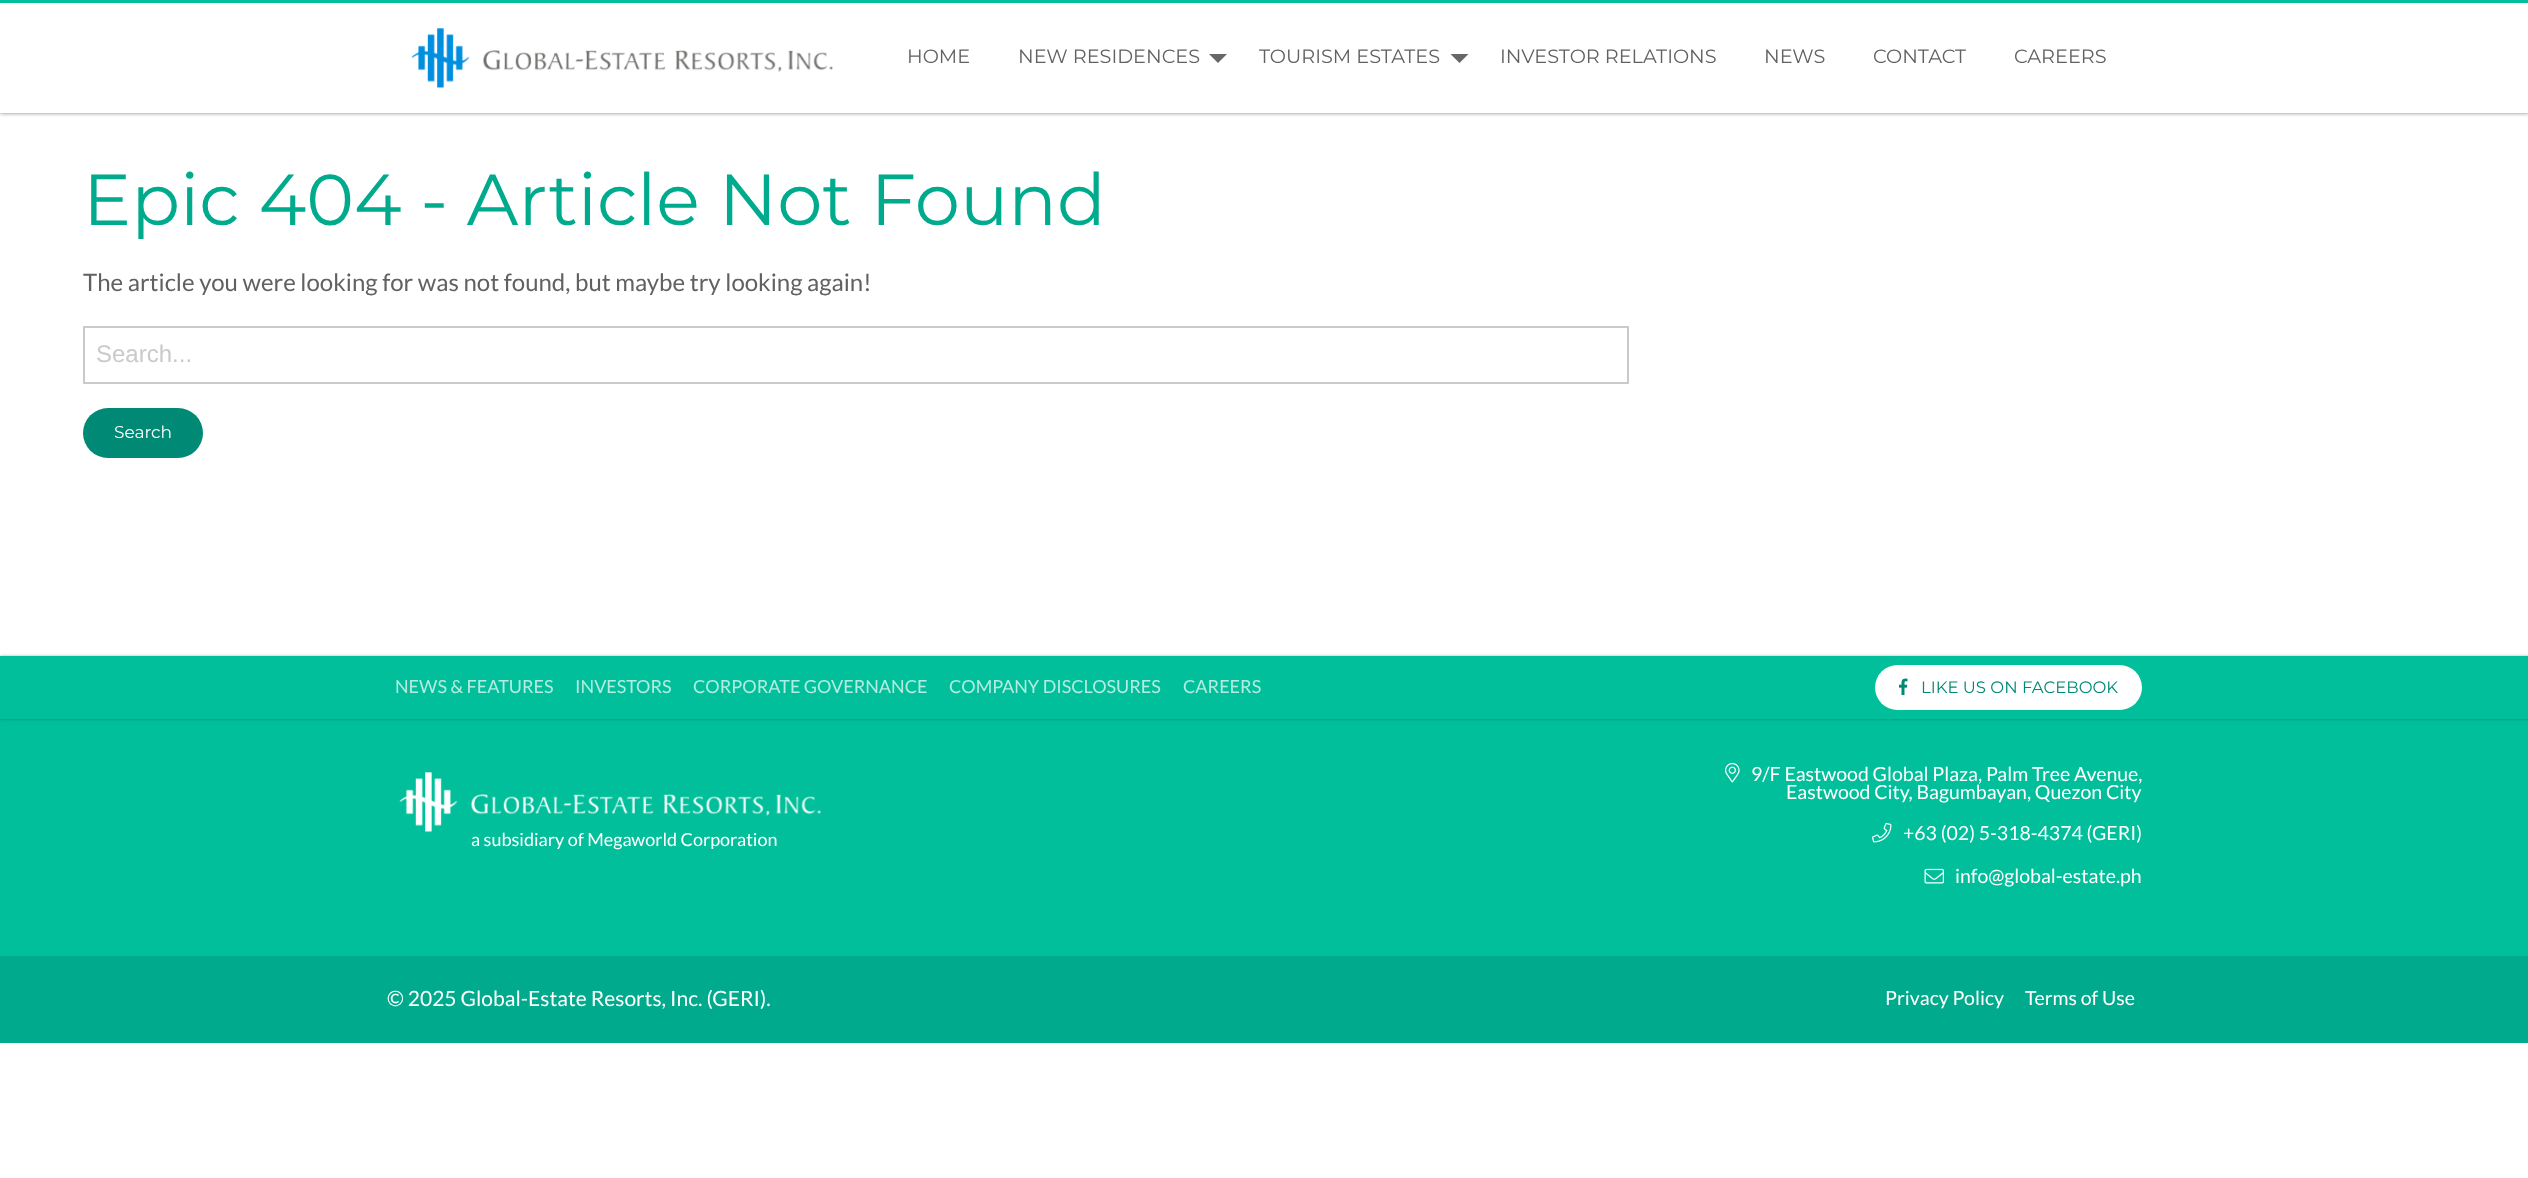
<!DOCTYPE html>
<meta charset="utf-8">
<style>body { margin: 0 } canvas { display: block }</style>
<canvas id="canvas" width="2528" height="1178"></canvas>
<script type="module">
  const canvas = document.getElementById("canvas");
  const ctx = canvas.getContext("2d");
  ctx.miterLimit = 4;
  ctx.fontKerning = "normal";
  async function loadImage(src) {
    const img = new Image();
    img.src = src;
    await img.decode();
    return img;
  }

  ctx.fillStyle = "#ffffff";
  ctx.fillRect(0, 0, 2528, 1178);
  ctx.fillStyle = "#808080";
  ctx.filter = "blur(2px)";
  ctx.beginPath();
  ctx.rect(0, 0, 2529, 113);
  ctx.fill();
  ctx.filter = "none";
  ctx.fillStyle = "#ffffff";
  ctx.fillRect(0, 3, 2528, 110);
  ctx.fillStyle = "#00bf9a";
  ctx.fillRect(0, 0, 2528, 3);
  ctx.drawImage(await loadImage("img1.png"), 411, 28, 422, 61);
  ctx.font = "19.25px Montserrat";
  ctx.fillStyle = "#616161";
  ctx.fillText("HOME", 907, 63);
  ctx.fillText("NEW RESIDENCES", 1018, 63);
  ctx.fillStyle = "#676767";
  ctx.beginPath();
  ctx.moveTo(1209, 54);
  ctx.lineTo(1227, 54);
  ctx.lineTo(1218, 63);
  ctx.closePath();
  ctx.fill();
  ctx.fillStyle = "#616161";
  ctx.fillText("TOURISM ESTATES", 1259, 63);
  ctx.fillStyle = "#676767";
  ctx.beginPath();
  ctx.moveTo(1450.5, 54);
  ctx.lineTo(1468.5, 54);
  ctx.lineTo(1459.5, 63);
  ctx.closePath();
  ctx.fill();
  ctx.fillStyle = "#616161";
  ctx.fillText("INVESTOR RELATIONS", 1500, 63);
  ctx.fillText("NEWS", 1764, 63);
  ctx.fillText("CONTACT", 1873, 63);
  ctx.fillText("CAREERS", 2014, 63);
  ctx.font = "72px Montserrat";
  ctx.fillStyle = "#00aa8d";
  ctx.fillText("Epic 404 - Article Not Found", 83, 225);
  ctx.font = "24px Lato";
  ctx.fillStyle = "#616161";
  ctx.fillText("The article you were looking for was not found, but maybe try looking again!", 83, 291);
  ctx.strokeStyle = "#cacaca";
  ctx.lineWidth = 2;
  ctx.strokeRect(84, 327, 1544, 56);
  ctx.font = "24px Liberation Sans";
  ctx.fillStyle = "#cacaca";
  ctx.fillText("Search...", 96, 362);
  ctx.fillStyle = "#008975";
  ctx.beginPath();
  ctx.roundRect(83, 408, 120, 50, 25);
  ctx.fill();
  ctx.font = "17px Montserrat";
  ctx.fillStyle = "#ffffff";
  ctx.fillText("Search", 114, 438);
  ctx.fillStyle = "#00bf9a";
  ctx.fillRect(0, 656, 2528, 300);
  ctx.save();
  ctx.beginPath();
  ctx.moveTo(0, 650);
  ctx.lineTo(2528, 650);
  ctx.lineTo(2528, 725);
  ctx.lineTo(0, 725);
  ctx.closePath();
  ctx.moveTo(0, 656);
  ctx.lineTo(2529, 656);
  ctx.lineTo(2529, 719);
  ctx.lineTo(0, 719);
  ctx.closePath();
  ctx.clip("evenodd");
  ctx.fillStyle = "rgba(0, 0, 0, 0.3)";
  ctx.filter = "blur(1.5px)";
  ctx.beginPath();
  ctx.rect(0, 656, 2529, 63);
  ctx.fill();
  ctx.filter = "none";
  ctx.restore();
  ctx.font = "18px Lato";
  ctx.fillStyle = "#b3ece1";
  ctx.fillText("NEWS & FEATURES", 395, 693);
  ctx.fillText("INVESTORS", 575, 693);
  ctx.fillText("CORPORATE GOVERNANCE", 693, 693);
  ctx.fillText("COMPANY DISCLOSURES", 949, 693);
  ctx.fillText("CAREERS", 1183, 693);
  ctx.fillStyle = "#ffffff";
  ctx.beginPath();
  ctx.roundRect(1875, 665, 267, 45, 22.5);
  ctx.fill();
  ctx.drawImage(await loadImage("img2.png"), 1899, 678, 9, 18);
  ctx.font = "16.5px Montserrat";
  ctx.fillStyle = "#008975";
  ctx.fillText("LIKE US ON FACEBOOK", 1921, 693);
  ctx.drawImage(await loadImage("img3.png"), 399, 772, 423, 61);
  ctx.font = "18px Lato";
  ctx.fillStyle = "#ffffff";
  ctx.fillText("a subsidiary of Megaworld Corporation", 471, 846);
  ctx.drawImage(await loadImage("img4.png"), 1725, 762, 15, 21);
  ctx.font = "19.5px Lato";
  ctx.fillText("9/F Eastwood Global Plaza, Palm Tree Avenue,", 1751, 781);
  ctx.fillText("Eastwood City, Bagumbayan, Quezon City", 1786, 799);
  ctx.drawImage(await loadImage("img5.png"), 1872, 822, 20, 21);
  ctx.fillText("+63 (02) 5-318-4374 (GERI)", 1903, 840);
  ctx.drawImage(await loadImage("img6.png"), 1924, 868, 20, 16);
  ctx.fillText("info@global-estate.ph", 1955, 883);
  ctx.fillStyle = "#00aa8d";
  ctx.fillRect(0, 956, 2528, 87);
  ctx.font = "21px Lato";
  ctx.fillStyle = "#ffffff";
  ctx.fillText("© 2025 Global-Estate Resorts, Inc. (GERI).", 387, 1006);
  ctx.font = "19.5px Lato";
  ctx.fillText("Privacy Policy", 1885, 1005);
  ctx.fillText("Terms of Use", 2025, 1005);
</script>
